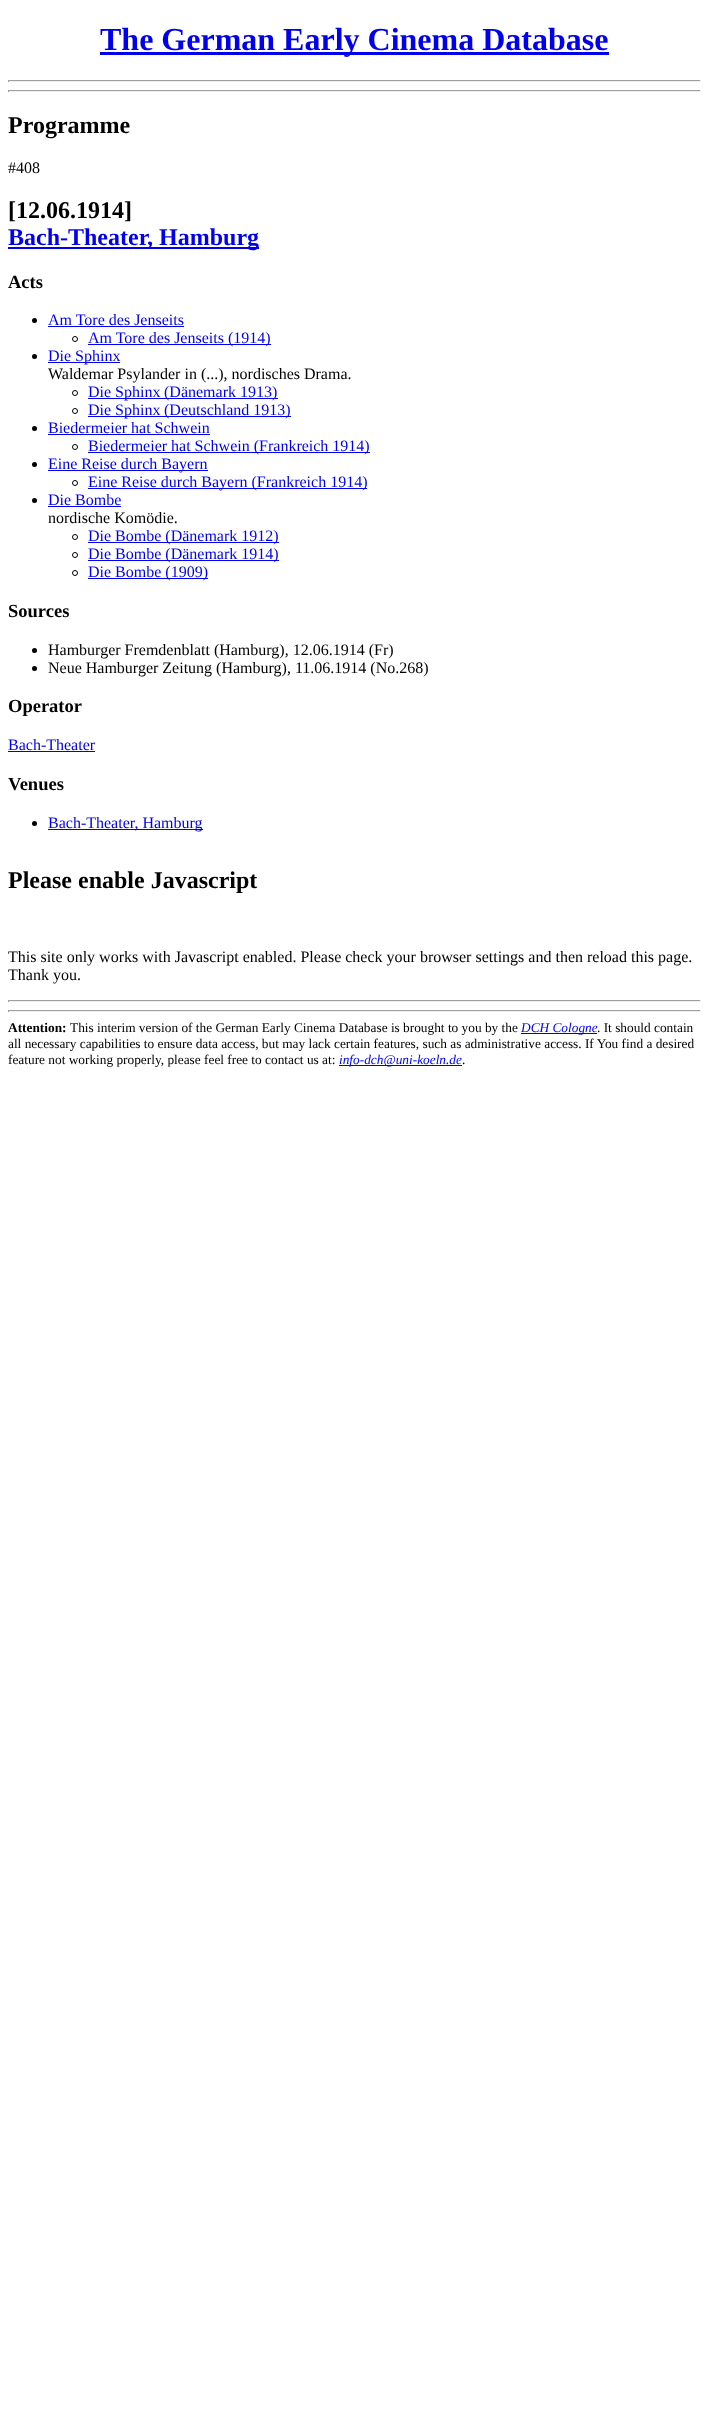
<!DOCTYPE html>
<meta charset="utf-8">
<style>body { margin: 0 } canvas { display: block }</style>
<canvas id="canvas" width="709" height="2429"></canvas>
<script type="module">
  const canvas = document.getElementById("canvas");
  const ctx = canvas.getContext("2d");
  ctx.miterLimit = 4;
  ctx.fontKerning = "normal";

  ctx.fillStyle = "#ffffff";
  ctx.fillRect(0, 0, 709, 2429);
  ctx.fillStyle = "#0000ee";
  ctx.fillRect(100, 52, 509, 3);
  ctx.font = "bold 32px Liberation Serif";
  ctx.fillText("The German Early Cinema Database", 100, 50);
  ctx.fillStyle = "#9f9f9f";
  ctx.fillRect(8, 80, 693, 1);
  ctx.fillStyle = "#eeeeee";
  ctx.fillRect(700, 80, 1, 2);
  ctx.fillRect(8, 81, 693, 1);
  ctx.fillStyle = "#9f9f9f";
  ctx.fillRect(8, 80, 1, 2);
  ctx.fillRect(8, 90, 693, 1);
  ctx.fillStyle = "#eeeeee";
  ctx.fillRect(700, 90, 1, 2);
  ctx.fillRect(8, 91, 693, 1);
  ctx.fillStyle = "#9f9f9f";
  ctx.fillRect(8, 90, 1, 2);
  ctx.font = "bold 24px Liberation Serif";
  ctx.fillStyle = "#000000";
  ctx.fillText("Programme", 8, 133);
  ctx.font = "16px Liberation Serif";
  ctx.fillText("#408", 8, 173);
  ctx.font = "bold 24px Liberation Serif";
  ctx.fillText("[12.06.1914]", 8, 218);
  ctx.fillStyle = "#0000ee";
  ctx.fillRect(8, 247, 251, 2);
  ctx.fillText("Bach-Theater, Hamburg", 8, 245);
  ctx.font = "bold 18.5px Liberation Serif";
  ctx.fillStyle = "#000000";
  ctx.fillText("Acts", 8, 288);
  ctx.beginPath();
  ctx.arc(34.5, 320.5, 2.5, 0, Math.PI * 2);
  ctx.fill();
  ctx.font = "16px Liberation Serif";
  ctx.fillStyle = "#0000ee";
  ctx.fillText("Am Tore des Jenseits", 48, 325);
  ctx.fillRect(48, 326, 136, 1);
  ctx.beginPath();
  ctx.arc(75, 339, 2.5, 0, Math.PI * 2);
  ctx.strokeStyle = "#000000";
  ctx.stroke();
  ctx.fillRect(88, 344, 183, 1);
  ctx.fillText("Am Tore des Jenseits (1914)", 88, 343);
  ctx.fillStyle = "#000000";
  ctx.beginPath();
  ctx.arc(34.5, 356.5, 2.5, 0, Math.PI * 2);
  ctx.fill();
  ctx.fillStyle = "#0000ee";
  ctx.fillRect(48, 362, 72, 1);
  ctx.fillText("Die Sphinx", 48, 361);
  ctx.fillStyle = "#000000";
  ctx.fillText("Waldemar Psylander in (...), nordisches Drama.", 48, 379);
  ctx.beginPath();
  ctx.arc(75, 393, 2.5, 0, Math.PI * 2);
  ctx.stroke();
  ctx.fillStyle = "#0000ee";
  ctx.fillRect(88, 398, 72, 1);
  ctx.fillText("Die Sphinx", 88, 397);
  ctx.fillRect(160, 398, 118, 1);
  ctx.fillText("(Dänemark 1913)", 164, 397);
  ctx.beginPath();
  ctx.arc(75, 411, 2.5, 0, Math.PI * 2);
  ctx.stroke();
  ctx.fillRect(88, 416, 72, 1);
  ctx.fillText("Die Sphinx", 88, 415);
  ctx.fillRect(160, 416, 131, 1);
  ctx.fillText("(Deutschland 1913)", 164, 415);
  ctx.fillStyle = "#000000";
  ctx.beginPath();
  ctx.arc(34.5, 428.5, 2.5, 0, Math.PI * 2);
  ctx.fill();
  ctx.fillStyle = "#0000ee";
  ctx.fillText("Biedermeier hat Schwein", 48, 433);
  ctx.fillRect(48, 434, 162, 1);
  ctx.beginPath();
  ctx.arc(75, 447, 2.5, 0, Math.PI * 2);
  ctx.stroke();
  ctx.fillRect(88, 452, 282, 1);
  ctx.fillText("Biedermeier hat Schwein (Frankreich 1914)", 88, 451);
  ctx.fillStyle = "#000000";
  ctx.beginPath();
  ctx.arc(34.5, 464.5, 2.5, 0, Math.PI * 2);
  ctx.fill();
  ctx.fillStyle = "#0000ee";
  ctx.fillRect(48, 470, 160, 1);
  ctx.fillText("Eine Reise durch Bayern", 48, 469);
  ctx.beginPath();
  ctx.arc(75, 483, 2.5, 0, Math.PI * 2);
  ctx.stroke();
  ctx.fillRect(88, 488, 279, 1);
  ctx.fillText("Eine Reise durch Bayern (Frankreich 1914)", 88, 487);
  ctx.fillStyle = "#000000";
  ctx.beginPath();
  ctx.arc(34.5, 500.5, 2.5, 0, Math.PI * 2);
  ctx.fill();
  ctx.fillStyle = "#0000ee";
  ctx.fillText("Die Bombe", 48, 505);
  ctx.fillRect(48, 506, 73, 1);
  ctx.fillStyle = "#000000";
  ctx.fillText("nordische Komödie.", 48, 523);
  ctx.beginPath();
  ctx.arc(75, 537, 2.5, 0, Math.PI * 2);
  ctx.stroke();
  ctx.fillStyle = "#0000ee";
  ctx.fillRect(88, 542, 191, 1);
  ctx.fillText("Die Bombe (Dänemark 1912)", 88, 541);
  ctx.beginPath();
  ctx.arc(75, 555, 2.5, 0, Math.PI * 2);
  ctx.stroke();
  ctx.fillRect(88, 560, 191, 1);
  ctx.fillText("Die Bombe (Dänemark 1914)", 88, 559);
  ctx.beginPath();
  ctx.arc(75, 573, 2.5, 0, Math.PI * 2);
  ctx.stroke();
  ctx.fillRect(88, 578, 120, 1);
  ctx.fillText("Die Bombe (1909)", 88, 577);
  ctx.font = "bold 18.5px Liberation Serif";
  ctx.fillStyle = "#000000";
  ctx.fillText("Sources", 8, 617);
  ctx.beginPath();
  ctx.arc(34.5, 650.5, 2.5, 0, Math.PI * 2);
  ctx.fill();
  ctx.font = "16px Liberation Serif";
  ctx.fillText("Hamburger Fremdenblatt (Hamburg), 12.06.1914 (Fr)", 48, 655);
  ctx.beginPath();
  ctx.arc(34.5, 668.5, 2.5, 0, Math.PI * 2);
  ctx.fill();
  ctx.fillText("Neue Hamburger Zeitung (Hamburg), 11.06.1914 (No.268)", 48, 673);
  ctx.font = "bold 18.5px Liberation Serif";
  ctx.fillText("Operator", 8, 712);
  ctx.font = "16px Liberation Serif";
  ctx.fillStyle = "#0000ee";
  ctx.fillText("Bach-Theater", 8, 750);
  ctx.fillRect(8, 751, 87, 1);
  ctx.font = "bold 18.5px Liberation Serif";
  ctx.fillStyle = "#000000";
  ctx.fillText("Venues", 8, 790);
  ctx.beginPath();
  ctx.arc(34.5, 823.5, 2.5, 0, Math.PI * 2);
  ctx.fill();
  ctx.fillStyle = "#0000ee";
  ctx.fillRect(48, 829, 155, 1);
  ctx.font = "16px Liberation Serif";
  ctx.fillText("Bach-Theater, Hamburg", 48, 828);
  ctx.font = "bold 24px Liberation Serif";
  ctx.fillStyle = "#000000";
  ctx.fillText("Please enable Javascript", 8, 888);
  ctx.font = "16px Liberation Serif";
  ctx.fillText("This site only works with Javascript enabled. Please check your browser settings and then reload this page.", 8, 962);
  ctx.fillText("Thank you.", 8, 980);
  ctx.fillStyle = "#9f9f9f";
  ctx.fillRect(8, 1000, 693, 1);
  ctx.fillStyle = "#eeeeee";
  ctx.fillRect(700, 1000, 1, 2);
  ctx.fillRect(8, 1001, 693, 1);
  ctx.fillStyle = "#9f9f9f";
  ctx.fillRect(8, 1000, 1, 2);
  ctx.fillRect(8, 1010, 693, 1);
  ctx.fillStyle = "#eeeeee";
  ctx.fillRect(700, 1010, 1, 2);
  ctx.fillRect(8, 1011, 693, 1);
  ctx.fillStyle = "#9f9f9f";
  ctx.fillRect(8, 1010, 1, 2);
  ctx.font = "bold 13.33px Liberation Serif";
  ctx.fillStyle = "#000000";
  ctx.fillText("Attention:", 8, 1032);
  ctx.font = "13.33px Liberation Serif";
  ctx.fillText("This interim version of the German Early Cinema Database is brought to you by the", 70, 1032);
  ctx.fillStyle = "#0000ee";
  ctx.fillRect(521, 1033, 76, 1);
  ctx.font = "italic 13.33px Liberation Serif";
  ctx.fillText("DCH Cologne", 521, 1032);
  ctx.font = "13.33px Liberation Serif";
  ctx.fillStyle = "#000000";
  ctx.fillText(". It should contain", 597, 1032);
  ctx.fillText("all necessary capabilities to ensure data access, but may lack certain features, such as administrative access. If You find a desired", 8, 1048);
  ctx.fillText("feature not working properly, please feel free to contact us at:", 8, 1064);
  ctx.fillStyle = "#0000ee";
  ctx.fillRect(339, 1065, 123, 1);
  ctx.font = "italic 13.33px Liberation Serif";
  ctx.fillText("info-dch@uni-koeln.de", 339, 1064);
  ctx.font = "13.33px Liberation Serif";
  ctx.fillStyle = "#000000";
  ctx.fillText(".", 462, 1064);
</script>
